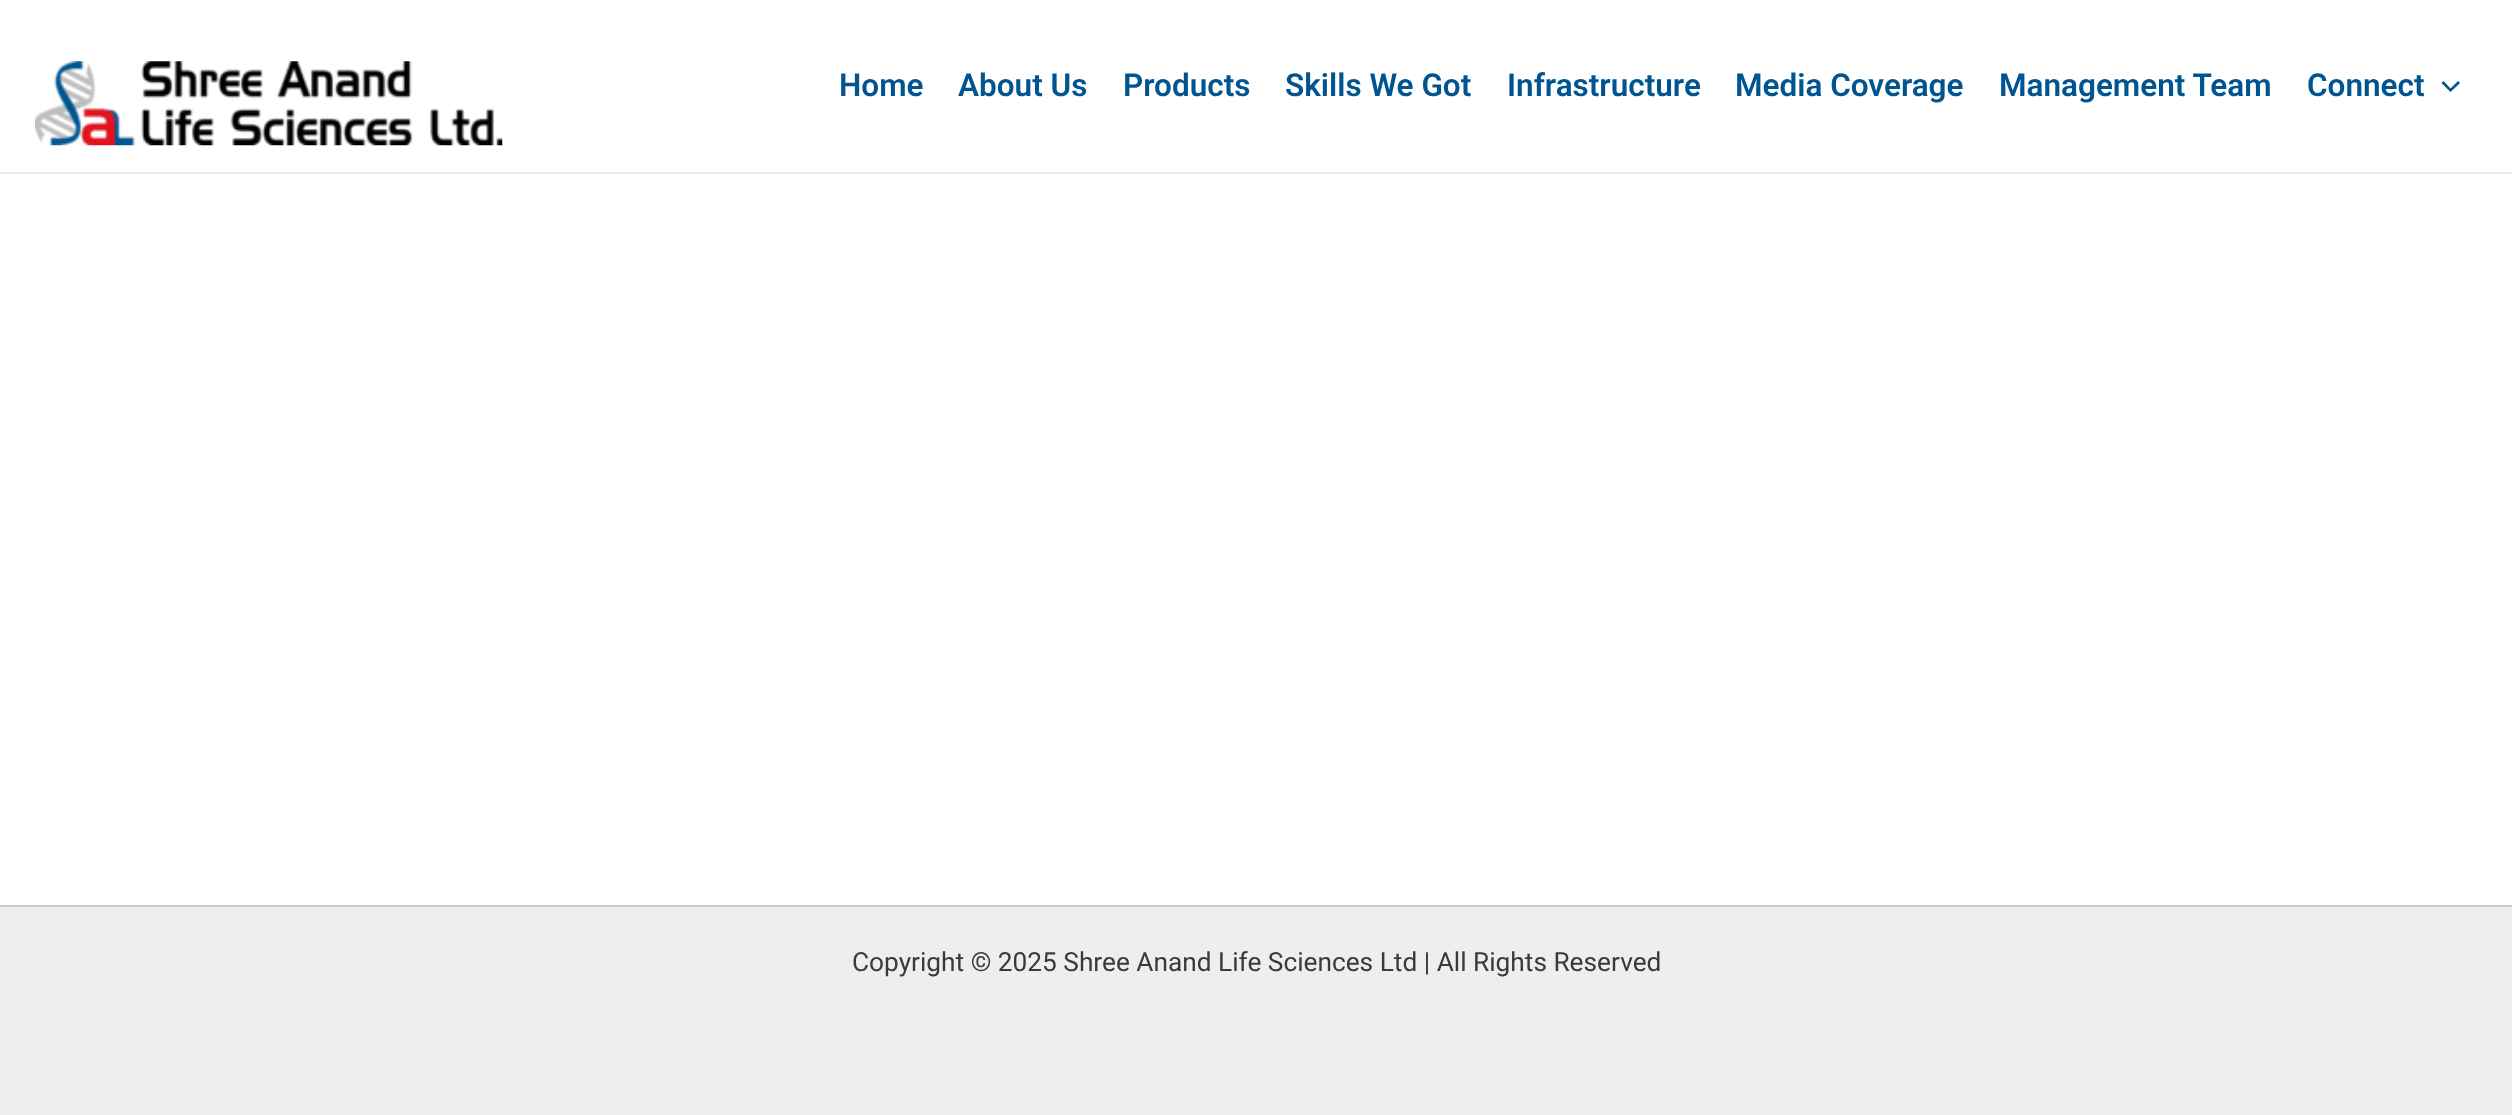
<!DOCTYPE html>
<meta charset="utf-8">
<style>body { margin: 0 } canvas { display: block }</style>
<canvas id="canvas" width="2512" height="1115"></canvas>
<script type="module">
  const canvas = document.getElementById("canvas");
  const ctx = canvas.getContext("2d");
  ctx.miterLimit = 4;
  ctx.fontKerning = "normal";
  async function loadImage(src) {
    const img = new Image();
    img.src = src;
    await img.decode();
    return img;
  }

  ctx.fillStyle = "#ffffff";
  ctx.fillRect(0, 0, 2512, 1115);
  ctx.fillStyle = "#eaeaea";
  ctx.fillRect(0, 172, 2512, 2);
  ctx.drawImage(await loadImage("img1.png"), 35, 61, 468, 85);
  ctx.font = "600 31.5px Roboto";
  ctx.fillStyle = "#005591";
  ctx.fillText("Home", 839, 96);
  ctx.fillText("About Us", 958, 96);
  ctx.fillText("Products", 1123, 96);
  ctx.fillText("Skills We Got", 1285, 96);
  ctx.fillText("Infrastructure", 1507, 96);
  ctx.fillText("Media Coverage", 1735, 96);
  ctx.fillText("Management Team", 1999, 96);
  ctx.fillText("Connect", 2307, 96);
  ctx.beginPath();
  ctx.moveTo(2441.5, 83);
  ctx.lineTo(2450.5, 92);
  ctx.lineTo(2460, 83);
  ctx.lineTo(2458, 81);
  ctx.lineTo(2450.5, 88.5);
  ctx.lineTo(2443.5, 81);
  ctx.closePath();
  ctx.fill();
  ctx.fillStyle = "#eeeeee";
  ctx.fillRect(0, 907, 2512, 208);
  ctx.fillStyle = "#cdcbcb";
  ctx.fillRect(0, 905, 2512, 2);
  ctx.font = "26.25px Roboto";
  ctx.fillStyle = "#3a3a3a";
  ctx.fillText("Copyright © 2025 Shree Anand Life Sciences Ltd | All Rights Reserved", 852, 971);
</script>
